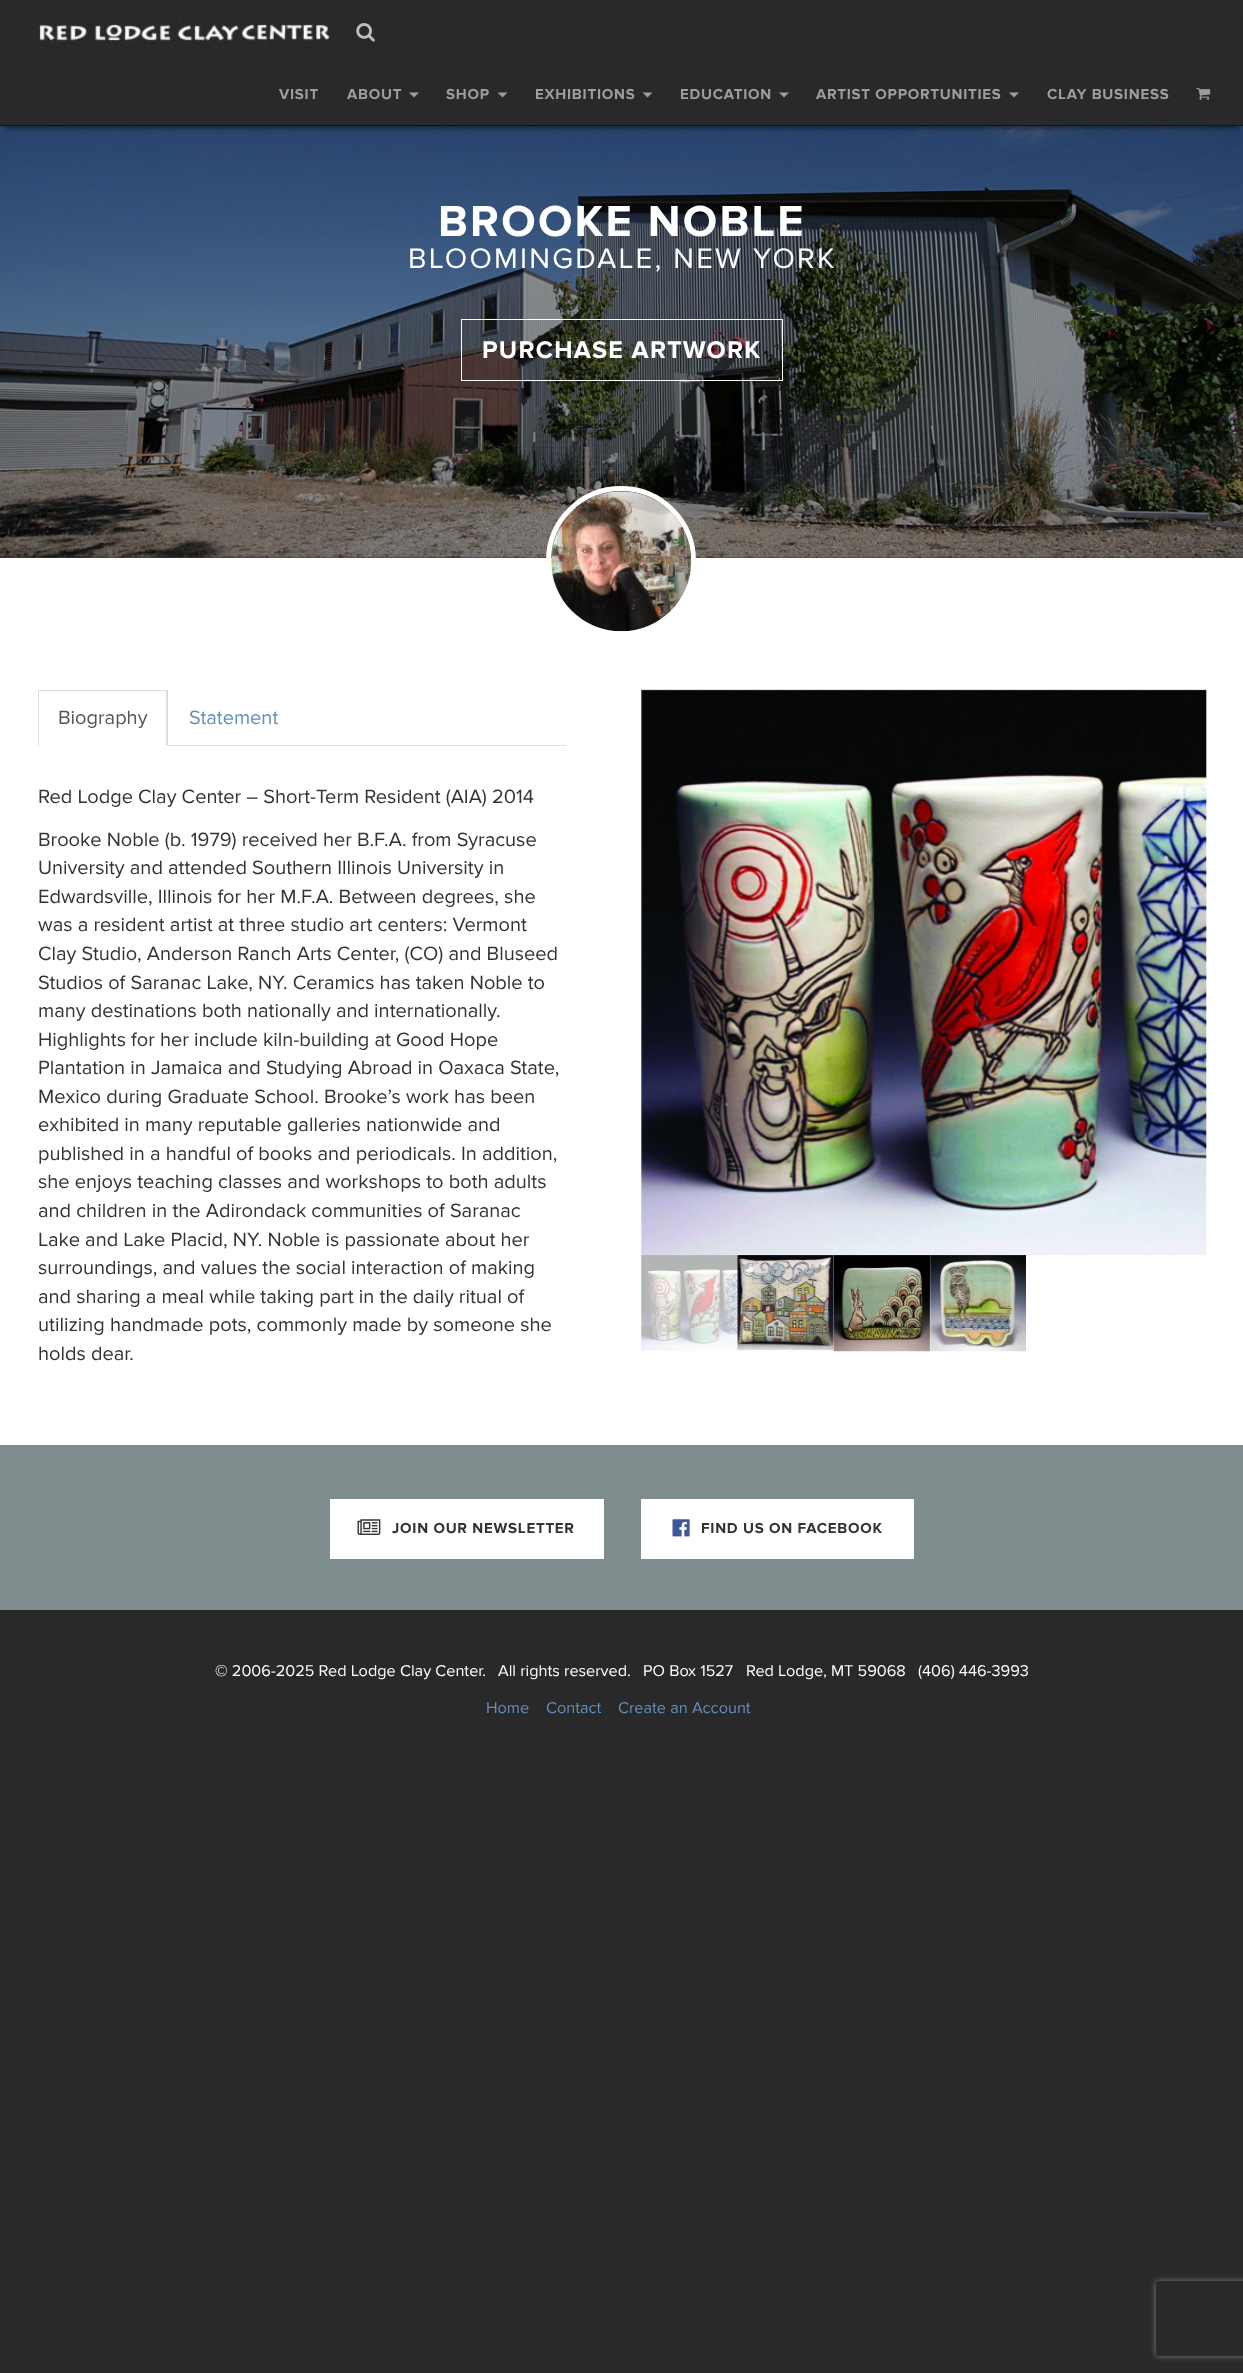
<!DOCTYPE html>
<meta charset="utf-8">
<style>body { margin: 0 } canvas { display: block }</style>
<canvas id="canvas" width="1243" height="2373"></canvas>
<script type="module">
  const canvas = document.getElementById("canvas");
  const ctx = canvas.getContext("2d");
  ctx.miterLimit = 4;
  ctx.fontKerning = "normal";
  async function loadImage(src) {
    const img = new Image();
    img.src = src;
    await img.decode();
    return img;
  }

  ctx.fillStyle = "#292929";
  ctx.fillRect(0, 0, 1243, 2373);
  ctx.fillStyle = "#2d3f54";
  ctx.fillRect(0, 557, 1243, 1);
  ctx.drawImage(await loadImage("img4.png"), 0, 126, 1243, 432);
  ctx.fillStyle = "rgba(0, 0, 0, 0.5)";
  ctx.filter = "blur(2.5px)";
  ctx.beginPath();
  ctx.rect(5, 11, 1234, 117);
  ctx.fill();
  ctx.filter = "none";
  ctx.fillStyle = "#292929";
  ctx.fillRect(2, 8, 1240, 117);
  ctx.fillStyle = "#121212";
  ctx.fillRect(0, 125, 1243, 1);
  ctx.drawImage(await loadImage("img1.png"), 38, 17, 293, 31);
  ctx.drawImage(await loadImage("img2.png"), 356, 23, 19, 19);
  ctx.letterSpacing = "0.75px";
  ctx.font = "bold 15px Proxima Nova";
  ctx.fillStyle = "#9d9d9d";
  ctx.fillText("VISIT", 279, 99);
  ctx.fillText("ABOUT", 347, 99);
  ctx.beginPath();
  ctx.moveTo(409, 92.5);
  ctx.lineTo(419, 92.5);
  ctx.lineTo(414, 97.5);
  ctx.closePath();
  ctx.fill();
  ctx.fillText("SHOP", 446, 99);
  ctx.beginPath();
  ctx.moveTo(497.5, 92.5);
  ctx.lineTo(507.5, 92.5);
  ctx.lineTo(502.5, 97.5);
  ctx.closePath();
  ctx.fill();
  ctx.fillText("EXHIBITIONS", 535, 99);
  ctx.beginPath();
  ctx.moveTo(642.5, 92.5);
  ctx.lineTo(652.5, 92.5);
  ctx.lineTo(647.5, 97.5);
  ctx.closePath();
  ctx.fill();
  ctx.fillText("EDUCATION", 680, 99);
  ctx.beginPath();
  ctx.moveTo(779, 92.5);
  ctx.lineTo(789, 92.5);
  ctx.lineTo(784, 97.5);
  ctx.closePath();
  ctx.fill();
  ctx.fillText("ARTIST OPPORTUNITIES", 816, 99);
  ctx.beginPath();
  ctx.moveTo(1009, 92.5);
  ctx.lineTo(1019, 92.5);
  ctx.lineTo(1014, 97.5);
  ctx.closePath();
  ctx.fill();
  ctx.fillText("CLAY BUSINESS", 1047, 99);
  ctx.drawImage(await loadImage("img3.png"), 1196, 88, 15, 12);
  ctx.letterSpacing = "2.25px";
  ctx.font = "bold 45px Proxima Nova";
  ctx.fillStyle = "#ffffff";
  ctx.fillText("BROOKE NOBLE", 438, 236);
  ctx.font = "29.25px Proxima Nova";
  ctx.fillText("BLOOMINGDALE, NEW YORK", 408, 268);
  ctx.strokeStyle = "#ffffff";
  ctx.strokeRect(461.5, 319.5, 321, 61);
  ctx.letterSpacing = "1.25px";
  ctx.font = "bold 25px Proxima Nova";
  ctx.fillText("PURCHASE ARTWORK", 482, 358);
  ctx.fillRect(0, 558, 1243, 887);
  ctx.beginPath();
  ctx.arc(621, 561, 72.5, 0, Math.PI * 2);
  ctx.lineWidth = 5;
  ctx.stroke();
  ctx.drawImage(await loadImage("img5.png"), 551, 491, 141, 141);
  ctx.fillStyle = "#dddddd";
  ctx.fillRect(168, 745, 398, 1);
  ctx.fillRect(38, 690, 130, 1);
  ctx.beginPath();
  ctx.moveTo(168, 690);
  ctx.lineTo(168, 746);
  ctx.lineTo(166, 745);
  ctx.lineTo(166, 691);
  ctx.closePath();
  ctx.fill();
  ctx.beginPath();
  ctx.moveTo(38, 746);
  ctx.lineTo(38, 690);
  ctx.lineTo(39, 691);
  ctx.lineTo(39, 745);
  ctx.closePath();
  ctx.fill();
  ctx.letterSpacing = "0px";
  ctx.font = "20px Proxima Nova";
  ctx.fillStyle = "#555555";
  ctx.fillText("Biography", 58, 724);
  ctx.fillStyle = "#668ebc";
  ctx.fillText("Statement", 189, 724);
  ctx.fillStyle = "#333333";
  ctx.fillText("Red Lodge Clay Center – Short-Term Resident (AIA) 2014", 38, 803);
  ctx.fillText("Brooke Noble (b. 1979) received her B.F.A. from Syracuse", 38, 846);
  ctx.fillText("University and attended Southern Illinois University in", 38, 874);
  ctx.fillText("Edwardsville, Illinois for her M.F.A. Between degrees, she", 38, 903);
  ctx.fillText("was a resident artist at three studio art centers: Vermont", 38, 931);
  ctx.fillText("Clay Studio, Anderson Ranch Arts Center, (CO) and Bluseed", 38, 960);
  ctx.fillText("Studios of Saranac Lake, NY. Ceramics has taken Noble to", 38, 989);
  ctx.fillText("many destinations both nationally and internationally.", 38, 1017);
  ctx.fillText("Highlights for her include kiln-building at Good Hope", 38, 1046);
  ctx.fillText("Plantation in Jamaica and Studying Abroad in Oaxaca State,", 38, 1074);
  ctx.fillText("Mexico during Graduate School. Brooke’s work has been", 38, 1103);
  ctx.fillText("exhibited in many reputable galleries nationwide and", 38, 1131);
  ctx.fillText("published in a handful of books and periodicals. In addition,", 38, 1160);
  ctx.fillText("she enjoys teaching classes and workshops to both adults", 38, 1188);
  ctx.fillText("and children in the Adirondack communities of Saranac", 38, 1217);
  ctx.fillText("Lake and Lake Placid, NY. Noble is passionate about her", 38, 1246);
  ctx.fillText("surroundings, and values the social interaction of making", 38, 1274);
  ctx.fillText("and sharing a meal while taking part in the daily ritual of", 38, 1303);
  ctx.fillText("utilizing handmade pots, commonly made by someone she", 38, 1331);
  ctx.fillText("holds dear.", 38, 1360);
  ctx.drawImage(await loadImage("img8.png"), 737, 1255, 97, 96);
  ctx.drawImage(await loadImage("img7.png"), 641, 1255, 97, 96);
  ctx.drawImage(await loadImage("img9.png"), 833, 1255, 97, 97);
  ctx.drawImage(await loadImage("img10.png"), 929, 1255, 97, 97);
  ctx.drawImage(await loadImage("img6.png"), 641, 689, 566, 567);
  ctx.fillStyle = "#7f8c8d";
  ctx.fillRect(0, 1445, 1243, 165);
  ctx.fillStyle = "#ffffff";
  ctx.fillRect(330, 1499, 274, 60);
  ctx.drawImage(await loadImage("img11.png"), 357, 1519, 24, 16);
  ctx.letterSpacing = "0.75px";
  ctx.font = "bold 15px Proxima Nova";
  ctx.fillStyle = "#333333";
  ctx.fillText("JOIN OUR NEWSLETTER", 392, 1533);
  ctx.fillStyle = "#ffffff";
  ctx.fillRect(641, 1499, 273, 60);
  ctx.drawImage(await loadImage("img12.png"), 672, 1519, 18, 18);
  ctx.fillStyle = "#333333";
  ctx.fillText("FIND US ON FACEBOOK", 701, 1533);
  ctx.letterSpacing = "0px";
  ctx.font = "16.25px Proxima Nova";
  ctx.fillStyle = "#ffffff";
  ctx.fillText("© 2006-2025 Red Lodge Clay Center.", 215, 1676);
  ctx.fillText("All rights reserved.", 498, 1676);
  ctx.fillText("PO Box 1527", 643, 1676);
  ctx.fillText("Red Lodge, MT 59068", 746, 1676);
  ctx.fillText("(406) 446-3993", 918, 1676);
  ctx.fillStyle = "#668ebc";
  ctx.fillText("Home", 486, 1713);
  ctx.fillText("Contact", 546, 1713);
  ctx.fillText("Create an Account", 618, 1713);
  ctx.save();
  ctx.beginPath();
  ctx.moveTo(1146, 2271);
  ctx.lineTo(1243, 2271);
  ctx.lineTo(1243, 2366);
  ctx.lineTo(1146, 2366);
  ctx.closePath();
  ctx.moveTo(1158.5, 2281);
  ctx.lineTo(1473.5, 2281);
  ctx.bezierCurveTo(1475, 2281, 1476, 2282, 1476, 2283.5);
  ctx.lineTo(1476, 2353.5);
  ctx.bezierCurveTo(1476, 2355, 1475, 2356, 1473.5, 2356);
  ctx.lineTo(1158.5, 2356);
  ctx.bezierCurveTo(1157, 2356, 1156, 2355, 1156, 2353.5);
  ctx.lineTo(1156, 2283.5);
  ctx.bezierCurveTo(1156, 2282, 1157, 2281, 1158.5, 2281);
  ctx.closePath();
  ctx.clip("evenodd");
  ctx.fillStyle = "#808080";
  ctx.filter = "blur(3px)";
  ctx.beginPath();
  ctx.roundRect(1156, 2281, 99, 75, 2.5);
  ctx.fill();
  ctx.filter = "none";
  ctx.restore();
</script>
